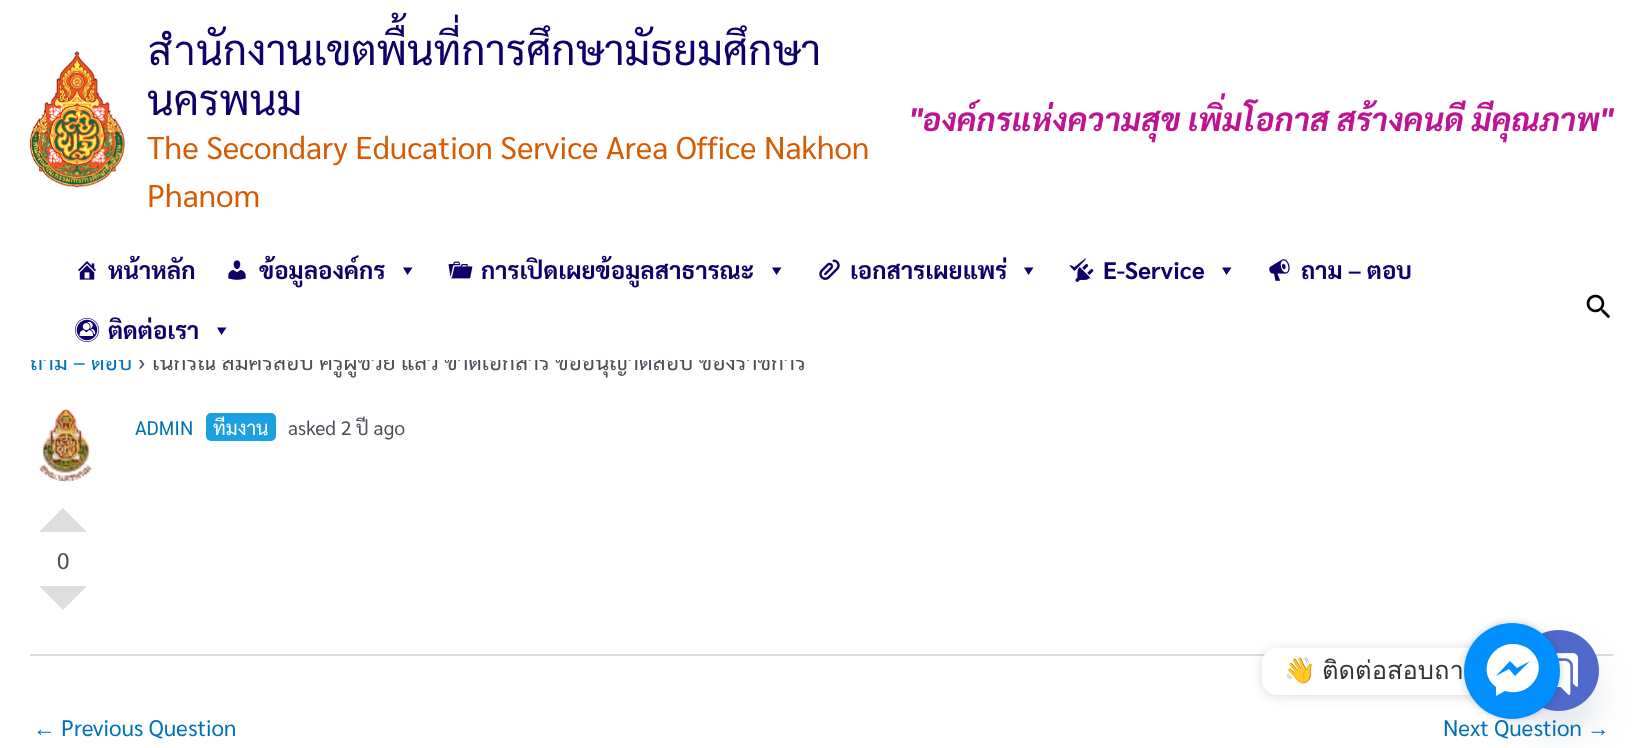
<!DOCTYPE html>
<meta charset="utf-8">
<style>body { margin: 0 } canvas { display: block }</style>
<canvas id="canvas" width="1642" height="748"></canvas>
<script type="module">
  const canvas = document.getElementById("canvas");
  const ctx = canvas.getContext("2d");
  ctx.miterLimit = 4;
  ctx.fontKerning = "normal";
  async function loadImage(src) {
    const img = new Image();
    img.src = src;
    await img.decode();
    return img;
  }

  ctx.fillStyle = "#ffffff";
  ctx.fillRect(0, 0, 1642, 748);
  ctx.drawImage(await loadImage("img1.png"), 30, 51, 95, 137);
  ctx.font = "42px Sarabun";
  ctx.fillStyle = "#0e006b";
  ctx.fillText("สำนักงานเขตพื้นที่การศึกษามัธยมศึกษา", 147, 65);
  ctx.fillText("นครพนม", 147, 115);
  ctx.font = "31.5px Sarabun";
  ctx.fillStyle = "#d65b03";
  ctx.fillText("The Secondary Education Service Area Office Nakhon", 147, 159);
  ctx.fillText("Phanom", 147, 207);
  ctx.font = "italic bold 32px Sarabun";
  ctx.fillStyle = "#bf1394";
  ctx.fillText("\"องค์กรแห่งความสุข เพิ่มโอกาส สร้างคนดี มีคุณภาพ\"", 909, 131);
  ctx.font = "22.5px Sarabun";
  ctx.fillStyle = "#0170b9";
  ctx.fillText("ถาม – ตอบ", 30, 370);
  ctx.fillStyle = "#4b4f58";
  ctx.fillText("› ในกรณี สมัครสอบ ครูผู้ช่วย แล้ว ขาดเอกสาร ขออนุญาตสอบ ของราชการ", 138, 370);
  ctx.fillStyle = "#ffffff";
  ctx.fillRect(31, 347, 774, 13);
  ctx.drawImage(await loadImage("img2.png"), 78, 261, 18, 19);
  ctx.font = "bold 24px Sarabun";
  ctx.fillStyle = "#0e006b";
  ctx.fillText("หน้าหลัก", 108, 279);
  ctx.drawImage(await loadImage("img3.png"), 228, 260, 18, 20);
  ctx.fillText("ข้อมูลองค์กร", 259, 279);
  ctx.beginPath();
  ctx.moveTo(412.5, 267.5);
  ctx.lineTo(407.5, 275);
  ctx.lineTo(403, 267.5);
  ctx.closePath();
  ctx.fill();
  ctx.drawImage(await loadImage("img4.png"), 448, 261, 25, 18);
  ctx.fillText("การเปิดเผยข้อมูลสาธารณะ", 481, 279);
  ctx.beginPath();
  ctx.moveTo(781.5, 267.5);
  ctx.lineTo(776.5, 275);
  ctx.lineTo(772, 267.5);
  ctx.closePath();
  ctx.fill();
  ctx.drawImage(await loadImage("img5.png"), 819, 259, 21, 21);
  ctx.fillText("เอกสารเผยแพร่", 850, 279);
  ctx.beginPath();
  ctx.moveTo(1033.5, 267.5);
  ctx.lineTo(1028.5, 275);
  ctx.lineTo(1024, 267.5);
  ctx.closePath();
  ctx.fill();
  ctx.drawImage(await loadImage("img6.png"), 1069, 258, 25, 24);
  ctx.fillText("E-Service", 1103, 279);
  ctx.beginPath();
  ctx.moveTo(1231.5, 267.5);
  ctx.lineTo(1226.5, 275);
  ctx.lineTo(1222, 267.5);
  ctx.closePath();
  ctx.fill();
  ctx.drawImage(await loadImage("img7.png"), 1269, 259, 21, 22);
  ctx.fillText("ถาม – ตอบ", 1301, 279);
  ctx.drawImage(await loadImage("img8.png"), 75, 318, 24, 24);
  ctx.fillText("ติดต่อเรา", 108, 339);
  ctx.beginPath();
  ctx.moveTo(226.5, 327.5);
  ctx.lineTo(221.5, 335);
  ctx.lineTo(217, 327.5);
  ctx.closePath();
  ctx.fill();
  ctx.drawImage(await loadImage("img9.png"), 1586, 294, 24, 25);
  ctx.drawImage(await loadImage("img10.png"), 39, 409, 53, 73);
  ctx.font = "19.5px Sarabun";
  ctx.fillStyle = "#0170b9";
  ctx.fillText("ADMIN", 135, 435);
  ctx.fillStyle = "#1ba1e2";
  ctx.beginPath();
  ctx.roundRect(206, 413, 70, 28, 5);
  ctx.fill();
  ctx.fillStyle = "#ffffff";
  ctx.fillText("ทีมงาน", 213, 435);
  ctx.fillStyle = "#4b4f58";
  ctx.fillText("asked 2 ปี ago", 288, 435);
  ctx.fillStyle = "#dddddd";
  ctx.beginPath();
  ctx.moveTo(87, 532);
  ctx.lineTo(39, 532);
  ctx.lineTo(63, 508);
  ctx.closePath();
  ctx.fill();
  ctx.font = "22.5px Sarabun";
  ctx.fillStyle = "#4b4f58";
  ctx.fillText("0", 57, 569);
  ctx.fillStyle = "#dddddd";
  ctx.beginPath();
  ctx.moveTo(39, 586);
  ctx.lineTo(87, 586);
  ctx.lineTo(63, 610);
  ctx.closePath();
  ctx.fill();
  ctx.fillRect(30, 654, 1583, 2);
  ctx.font = "22.5px Liberation Serif";
  ctx.fillStyle = "#0170b9";
  ctx.fillText("←", 33, 736);
  ctx.font = "22.5px Sarabun";
  ctx.fillText("Previous Question", 61, 736);
  ctx.fillText("Next Question", 1443, 736);
  ctx.font = "22.5px Liberation Serif";
  ctx.fillText("→", 1587, 736);
  ctx.fillStyle = "rgba(0, 0, 0, 0.15)";
  ctx.filter = "blur(6px)";
  ctx.beginPath();
  ctx.roundRect(1262, 650, 241, 46, 15);
  ctx.fill();
  ctx.filter = "none";
  ctx.fillStyle = "#ffffff";
  ctx.beginPath();
  ctx.roundRect(1262, 648, 241, 47, 15);
  ctx.fill();
  ctx.font = "25.5px Noto Color Emoji";
  ctx.fillStyle = "#333333";
  ctx.fillText("👋", 1284, 679);
  ctx.font = "25.5px Loma";
  ctx.fillText("ติดต่อสอบถา", 1322, 679);
  ctx.fillStyle = "rgba(73, 104, 126, 0.16)";
  ctx.filter = "blur(18px)";
  ctx.beginPath();
  ctx.roundRect(1518, 654, 81, 81, 40.5);
  ctx.fill();
  ctx.filter = "none";
  ctx.drawImage(await loadImage("img11.png"), 1541, 630, 58, 81);
  ctx.fillStyle = "rgba(0, 0, 0, 0.2)";
  ctx.filter = "blur(4px)";
  ctx.beginPath();
  ctx.roundRect(1464, 623, 96, 96, 48);
  ctx.fill();
  ctx.filter = "none";
  ctx.fillStyle = "#008fff";
  ctx.beginPath();
  ctx.arc(1512, 671, 48, 0, Math.PI * 2);
  ctx.fill();
  ctx.fillStyle = "#ffffff";
  ctx.beginPath();
  ctx.moveTo(1513, 644);
  ctx.bezierCurveTo(1489, 644, 1477, 673, 1496, 687);
  ctx.lineTo(1496, 696);
  ctx.lineTo(1505, 691);
  ctx.bezierCurveTo(1531, 699, 1552, 667, 1529, 649);
  ctx.bezierCurveTo(1525, 646, 1519, 644, 1513, 644);
  ctx.closePath();
  ctx.moveTo(1515, 676);
  ctx.lineTo(1509, 669);
  ctx.lineTo(1496, 676);
  ctx.lineTo(1510, 661);
  ctx.lineTo(1517, 668);
  ctx.lineTo(1530, 661);
  ctx.closePath();
  ctx.fill();
</script>
